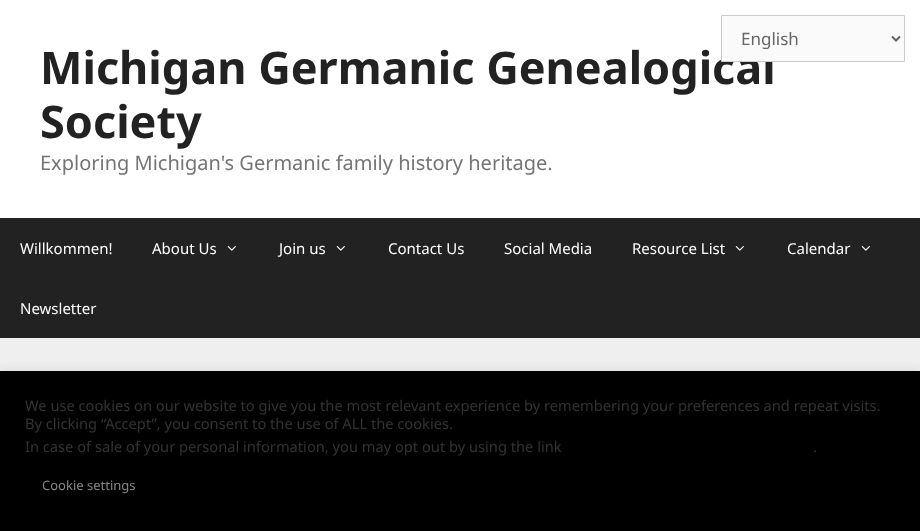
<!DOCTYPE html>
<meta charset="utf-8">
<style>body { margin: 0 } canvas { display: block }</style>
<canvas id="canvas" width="920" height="531"></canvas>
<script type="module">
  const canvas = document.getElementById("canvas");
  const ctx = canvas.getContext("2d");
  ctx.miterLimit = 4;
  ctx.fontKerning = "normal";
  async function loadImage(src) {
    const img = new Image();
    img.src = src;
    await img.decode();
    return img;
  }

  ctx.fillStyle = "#efefef";
  ctx.fillRect(0, 0, 920, 531);
  ctx.fillStyle = "#ffffff";
  ctx.fillRect(0, 0, 920, 218);
  ctx.font = "bold 45px Noto Sans";
  ctx.fillStyle = "#222222";
  ctx.fillText("Michigan Germanic Genealogical", 40, 84);
  ctx.fillStyle = "#fafafa";
  ctx.beginPath();
  ctx.rect(721.5, 15.5, 183, 46);
  ctx.fill();
  ctx.strokeStyle = "#cccccc";
  ctx.stroke();
  ctx.beginPath();
  ctx.moveTo(892, 36.5);
  ctx.lineTo(896, 40.5);
  ctx.lineTo(900, 36.5);
  ctx.strokeStyle = "#666666";
  ctx.lineWidth = 2;
  ctx.stroke();
  ctx.font = "17px Noto Sans";
  ctx.fillStyle = "#666666";
  ctx.fillText("English", 741, 45);
  ctx.font = "bold 45px Noto Sans";
  ctx.fillStyle = "#222222";
  ctx.fillText("Society", 40, 138);
  ctx.font = "20px Noto Sans";
  ctx.fillStyle = "#757575";
  ctx.fillText("Exploring Michigan's Germanic family history heritage.", 40, 170);
  ctx.fillStyle = "#222222";
  ctx.fillRect(0, 218, 920, 120);
  ctx.font = "15px Noto Sans";
  ctx.fillStyle = "#ffffff";
  ctx.fillText("Willkommen!", 20, 254);
  ctx.fillText("About Us", 152, 254);
  ctx.drawImage(await loadImage("img1.png"), 227, 246, 9, 5);
  ctx.fillText("Join us", 279, 254);
  ctx.drawImage(await loadImage("img1.png"), 336, 246, 9, 5);
  ctx.fillText("Contact Us", 388, 254);
  ctx.fillText("Social Media", 504, 254);
  ctx.fillText("Resource List", 632, 254);
  ctx.drawImage(await loadImage("img1.png"), 735, 246, 9, 5);
  ctx.fillText("Calendar", 787, 254);
  ctx.drawImage(await loadImage("img1.png"), 861, 246, 9, 5);
  ctx.fillText("Newsletter", 20, 314);
  ctx.fillStyle = "rgba(172, 171, 171, 0.3)";
  ctx.filter = "blur(5px)";
  ctx.beginPath();
  ctx.rect(0, 370, 920, 160);
  ctx.fill();
  ctx.filter = "none";
  ctx.fillStyle = "#000000";
  ctx.fillRect(0, 371, 920, 160);
  ctx.font = "14.67px Noto Sans";
  ctx.fillStyle = "#333333";
  ctx.fillText("We use cookies on our website to give you the most relevant experience by remembering your preferences and repeat visits.", 25, 411);
  ctx.fillText("By clicking “Accept”, you consent to the use of ALL the cookies.", 25, 429);
  ctx.fillText("In case of sale of your personal information, you may opt out by using the link", 25, 452);
  ctx.fillText(".", 813, 452);
  ctx.font = "13px Noto Sans";
  ctx.fillStyle = "#898888";
  ctx.fillText("Cookie settings", 42, 490);
</script>
